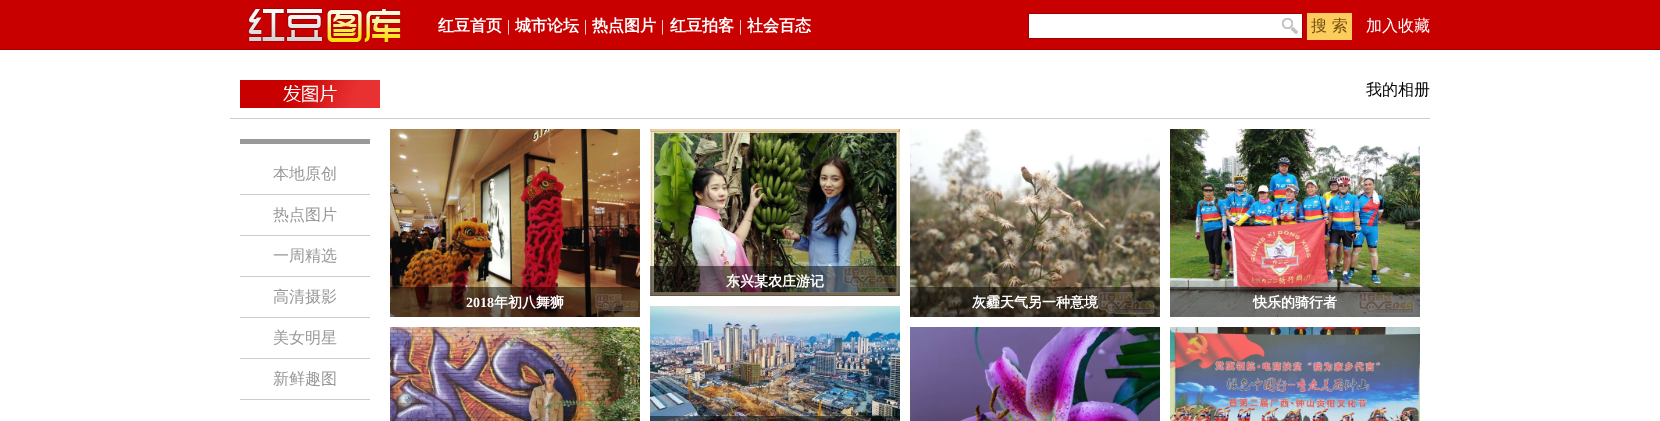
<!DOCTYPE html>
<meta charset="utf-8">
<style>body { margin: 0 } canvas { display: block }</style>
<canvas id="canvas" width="1660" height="421"></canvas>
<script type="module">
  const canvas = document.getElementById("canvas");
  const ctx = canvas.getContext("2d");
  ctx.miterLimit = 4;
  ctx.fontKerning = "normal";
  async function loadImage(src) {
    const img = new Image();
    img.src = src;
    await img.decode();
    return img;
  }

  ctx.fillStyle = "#ffffff";
  ctx.fillRect(0, 0, 1660, 421);
  ctx.fillStyle = "#c80000";
  ctx.fillRect(0, 0, 1660, 49);
  ctx.fillStyle = "#a80000";
  ctx.fillRect(0, 49, 1660, 1);
  ctx.drawImage(await loadImage("img1.png"), 247, 8, 155, 40);
  ctx.font = "bold 16px WenQuanYi Zen Hei";
  ctx.fillStyle = "#ffffff";
  ctx.fillText("红豆首页", 438, 31);
  ctx.font = "16px Liberation Serif";
  ctx.fillText("|", 507, 31);
  ctx.font = "bold 16px WenQuanYi Zen Hei";
  ctx.fillText("城市论坛", 515, 31);
  ctx.font = "16px Liberation Serif";
  ctx.fillText("|", 584, 31);
  ctx.font = "bold 16px WenQuanYi Zen Hei";
  ctx.fillText("热点图片", 592, 31);
  ctx.font = "16px Liberation Serif";
  ctx.fillText("|", 661, 31);
  ctx.font = "bold 16px WenQuanYi Zen Hei";
  ctx.fillText("红豆拍客", 670, 31);
  ctx.font = "16px Liberation Serif";
  ctx.fillText("|", 739, 31);
  ctx.font = "bold 16px WenQuanYi Zen Hei";
  ctx.fillText("社会百态", 747, 31);
  ctx.fillRect(1029, 14, 273, 24);
  ctx.drawImage(await loadImage("img2.png"), 1282, 18, 16, 16);
  ctx.strokeStyle = "#9b0101";
  ctx.strokeRect(1028.5, 13.5, 274, 25);
  ctx.fillStyle = "#fccc5d";
  ctx.fillRect(1307, 13, 45, 27);
  ctx.font = "500 16px WenQuanYi Zen Hei";
  ctx.fillStyle = "#735010";
  ctx.fillText("搜 索", 1311, 31);
  ctx.fillStyle = "#ffffff";
  ctx.fillText("加入收藏", 1366, 31);
  ctx.fillStyle = "#cccccc";
  ctx.fillRect(230, 118, 1200, 1);
  ctx.drawImage(await loadImage("img3.png"), 240, 80, 140, 28);
  ctx.fillStyle = "#000000";
  ctx.fillText("我的相册", 1366, 95);
  ctx.fillStyle = "#999999";
  ctx.fillRect(240, 139, 130, 5);
  ctx.fillStyle = "#cccccc";
  ctx.fillRect(240, 194, 130, 1);
  ctx.fillStyle = "#999999";
  ctx.fillText("本地原创", 273, 179);
  ctx.fillStyle = "#cccccc";
  ctx.fillRect(240, 235, 130, 1);
  ctx.fillStyle = "#999999";
  ctx.fillText("热点图片", 273, 220);
  ctx.fillStyle = "#cccccc";
  ctx.fillRect(240, 276, 130, 1);
  ctx.fillStyle = "#999999";
  ctx.fillText("一周精选", 273, 261);
  ctx.fillStyle = "#cccccc";
  ctx.fillRect(240, 317, 130, 1);
  ctx.fillStyle = "#999999";
  ctx.fillText("高清摄影", 273, 302);
  ctx.fillStyle = "#cccccc";
  ctx.fillRect(240, 358, 130, 1);
  ctx.fillStyle = "#999999";
  ctx.fillText("美女明星", 273, 343);
  ctx.fillStyle = "#cccccc";
  ctx.fillRect(240, 399, 130, 1);
  ctx.fillStyle = "#999999";
  ctx.fillText("新鲜趣图", 273, 384);
  ctx.drawImage(await loadImage("img4.png"), 650, 129, 250, 167);
  ctx.fillStyle = "rgba(0, 0, 0, 0.5)";
  ctx.fillRect(650, 266, 250, 30);
  ctx.font = "bold 14px WenQuanYi Zen Hei";
  ctx.fillStyle = "#ffffff";
  ctx.fillText("东兴某农庄游记", 726, 286);
  ctx.drawImage(await loadImage("img5.png"), 650, 306, 250, 115);
  ctx.fillStyle = "rgba(0, 0, 0, 0.5)";
  ctx.fillRect(650, 416, 250, 5);
  ctx.drawImage(await loadImage("img6.png"), 390, 129, 250, 188);
  ctx.fillRect(390, 287, 250, 30);
  ctx.font = "bold 14px Liberation Serif";
  ctx.fillStyle = "#ffffff";
  ctx.fillText("2018", 466, 307);
  ctx.font = "bold 14px WenQuanYi Zen Hei";
  ctx.fillText("年初八舞狮", 494, 307);
  ctx.drawImage(await loadImage("img7.png"), 390, 327, 250, 94);
  ctx.drawImage(await loadImage("img8.png"), 910, 129, 250, 188);
  ctx.fillStyle = "rgba(0, 0, 0, 0.5)";
  ctx.fillRect(910, 287, 250, 30);
  ctx.fillStyle = "#ffffff";
  ctx.fillText("灰霾天气另一种意境", 972, 307);
  ctx.drawImage(await loadImage("img9.png"), 910, 327, 250, 94);
  ctx.drawImage(await loadImage("img10.png"), 1170, 129, 250, 188);
  ctx.fillStyle = "rgba(0, 0, 0, 0.5)";
  ctx.fillRect(1170, 287, 250, 30);
  ctx.fillStyle = "#ffffff";
  ctx.fillText("快乐的骑行者", 1253, 307);
  ctx.drawImage(await loadImage("img11.png"), 1170, 327, 250, 94);
</script>
